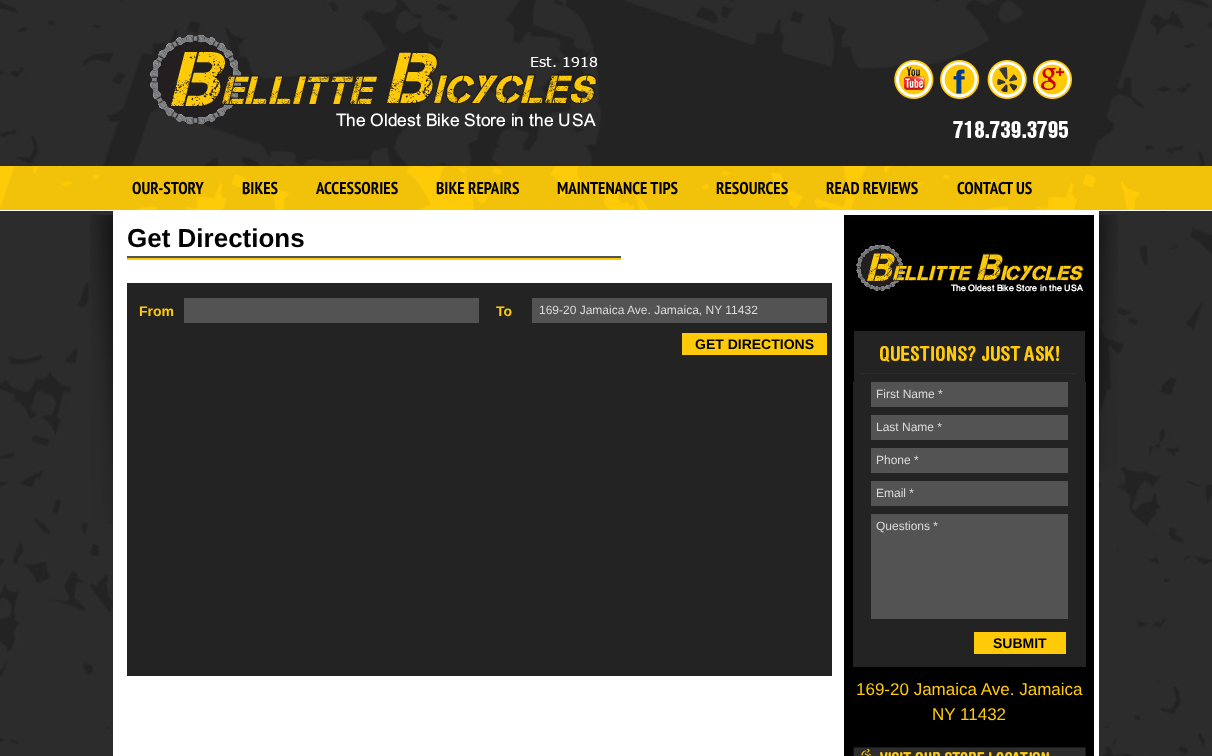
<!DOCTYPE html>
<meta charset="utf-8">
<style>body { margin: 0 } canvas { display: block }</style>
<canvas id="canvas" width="1212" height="756"></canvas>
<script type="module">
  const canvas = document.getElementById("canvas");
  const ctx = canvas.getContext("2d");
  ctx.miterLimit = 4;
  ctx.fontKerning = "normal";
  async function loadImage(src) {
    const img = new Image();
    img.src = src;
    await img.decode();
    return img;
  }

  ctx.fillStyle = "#ffffff";
  ctx.fillRect(0, 0, 1212, 756);
  ctx.drawImage(await loadImage("img1.png"), 0, 0, 1212, 166);
  ctx.drawImage(await loadImage("img2.png"), 150, 34, 448, 93);
  ctx.drawImage(await loadImage("img3.png"), 894, 60, 40, 39);
  ctx.drawImage(await loadImage("img4.png"), 940, 60, 39, 39);
  ctx.drawImage(await loadImage("img5.png"), 987, 60, 40, 39);
  ctx.drawImage(await loadImage("img6.png"), 1033, 60, 39, 39);
  ctx.drawImage(await loadImage("img7.png"), 953, 121, 115, 17);
  ctx.drawImage(await loadImage("img8.png"), 0, 166, 1212, 45);
  ctx.font = "bold 17px PT Sans Narrow";
  ctx.fillStyle = "#000000";
  ctx.fillText("OUR-STORY", 132, 194);
  ctx.fillText("BIKES", 242, 194);
  ctx.fillText("ACCESSORIES", 316, 194);
  ctx.fillText("BIKE REPAIRS", 436, 194);
  ctx.fillText("MAINTENANCE TIPS", 557, 194);
  ctx.fillText("RESOURCES", 716, 194);
  ctx.fillText("READ REVIEWS", 826, 194);
  ctx.fillText("CONTACT US", 957, 194);
  ctx.drawImage(await loadImage("img9.png"), 0, 211, 1212, 545);
  ctx.fillStyle = "#ffffff";
  ctx.fillRect(113, 211, 986, 545);
  ctx.fillStyle = "#000000";
  ctx.fillRect(844, 215, 250, 541);
  ctx.drawImage(await loadImage("img10.png"), 90, 215, 23, 309);
  ctx.fillStyle = "#ffcb08";
  ctx.fillRect(127, 258, 494, 2);
  ctx.fillStyle = "#535353";
  ctx.fillRect(127, 256, 494, 2);
  ctx.font = "bold 26px Liberation Sans";
  ctx.fillStyle = "#000000";
  ctx.fillText("Get Directions", 127, 247);
  ctx.fillStyle = "#232323";
  ctx.fillRect(127, 283, 705, 393);
  ctx.font = "bold 14px Liberation Sans";
  ctx.fillStyle = "#ffcb08";
  ctx.fillText("From", 139, 316);
  ctx.fillStyle = "#535353";
  ctx.fillRect(184, 298, 295, 25);
  ctx.fillStyle = "#ffcb08";
  ctx.fillText("To", 496, 316);
  ctx.fillStyle = "#535353";
  ctx.fillRect(532, 298, 295, 25);
  ctx.font = "12px Liberation Sans";
  ctx.fillStyle = "#dbdbdb";
  ctx.fillText("169-20 Jamaica Ave. Jamaica, NY 11432", 539, 314);
  ctx.fillStyle = "#ffcb08";
  ctx.fillRect(682, 333, 145, 22);
  ctx.font = "bold 14px Liberation Sans";
  ctx.fillStyle = "#000000";
  ctx.fillText("GET DIRECTIONS", 695, 349);
  ctx.drawImage(await loadImage("img11.png"), 1099, 215, 19, 256);
  ctx.drawImage(await loadImage("img12.png"), 856, 245, 229, 47);
  ctx.fillStyle = "#232323";
  ctx.fillRect(853, 382, 233, 285);
  ctx.drawImage(await loadImage("img13.png"), 853, 331, 233, 51);
  ctx.fillStyle = "#535353";
  ctx.fillRect(871, 382, 197, 25);
  ctx.font = "12px Liberation Sans";
  ctx.fillStyle = "#dbdbdb";
  ctx.fillText("First Name *", 876, 398);
  ctx.fillStyle = "#535353";
  ctx.fillRect(871, 415, 197, 25);
  ctx.fillStyle = "#dbdbdb";
  ctx.fillText("Last Name *", 876, 431);
  ctx.fillStyle = "#535353";
  ctx.fillRect(871, 448, 197, 25);
  ctx.fillStyle = "#dbdbdb";
  ctx.fillText("Phone *", 876, 464);
  ctx.fillStyle = "#535353";
  ctx.fillRect(871, 481, 197, 25);
  ctx.fillStyle = "#dbdbdb";
  ctx.fillText("Email *", 876, 497);
  ctx.fillStyle = "#535353";
  ctx.fillRect(871, 514, 197, 105);
  ctx.fillStyle = "#dbdbdb";
  ctx.fillText("Questions *", 876, 530);
  ctx.fillStyle = "#ffcb08";
  ctx.fillRect(974, 632, 92, 22);
  ctx.font = "bold 14px Liberation Sans";
  ctx.fillStyle = "#000000";
  ctx.fillText("SUBMIT", 993, 648);
  ctx.font = "17px Liberation Sans";
  ctx.fillStyle = "#ffcb08";
  ctx.fillText("169-20 Jamaica Ave. Jamaica", 856, 695);
  ctx.fillText("NY 11432", 932, 720);
  ctx.drawImage(await loadImage("img14.png"), 853, 747, 233, 9);
</script>
